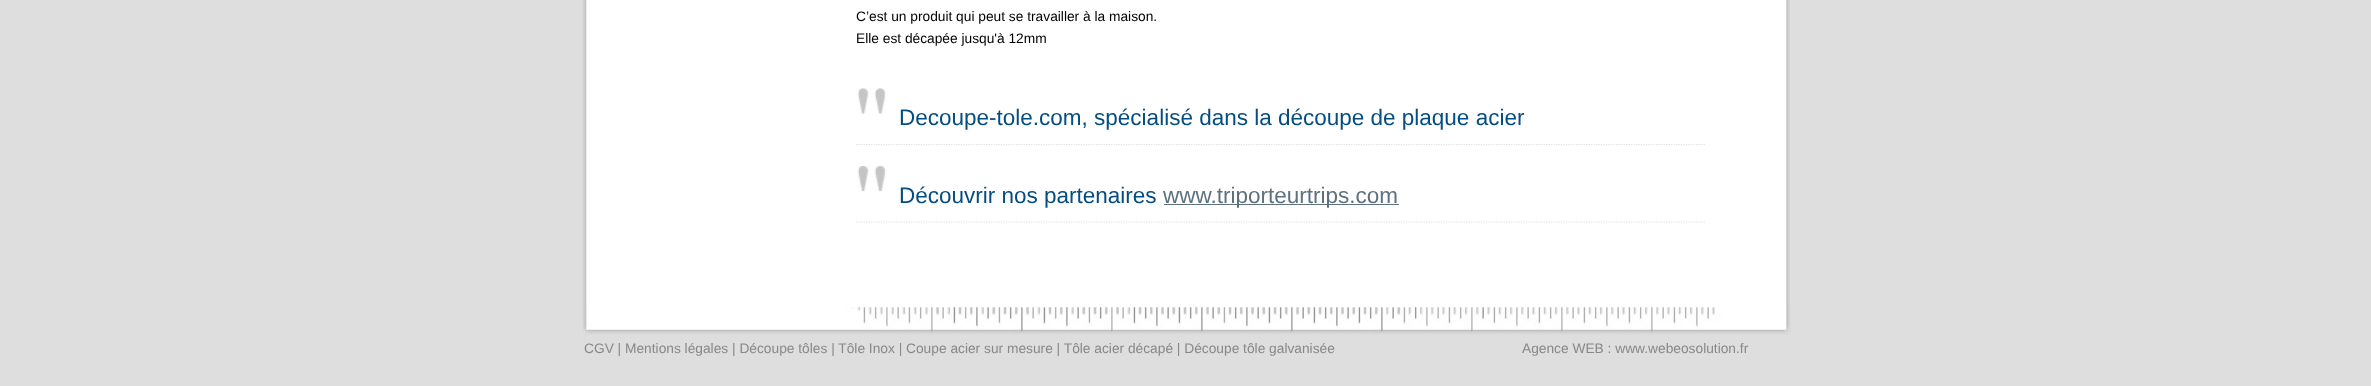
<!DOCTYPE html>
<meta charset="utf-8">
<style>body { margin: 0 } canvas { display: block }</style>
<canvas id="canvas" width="2371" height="386"></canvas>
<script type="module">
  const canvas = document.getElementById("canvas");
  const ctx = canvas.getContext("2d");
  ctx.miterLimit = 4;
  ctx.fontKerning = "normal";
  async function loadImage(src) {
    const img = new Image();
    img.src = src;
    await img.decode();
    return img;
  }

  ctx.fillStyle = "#dedede";
  ctx.fillRect(0, 0, 2371, 386);
  ctx.drawImage(await loadImage("img1.png"), 582, 0, 1208, 306);
  ctx.font = "13.75px Liberation Sans";
  ctx.fillStyle = "#000000";
  ctx.fillText("C’est un produit qui peut se travailler à la maison.", 856, 21);
  ctx.fillText("Elle est décapée jusqu'à 12mm", 856, 43);
  ctx.drawImage(await loadImage("img2.png"), 857, 88, 29, 26);
  ctx.beginPath();
  ctx.moveTo(856, 144.5);
  ctx.lineTo(1705, 144.5);
  ctx.strokeStyle = "#dddddd";
  ctx.lineWidth = 1.2;
  ctx.setLineDash([1.25, 1.25]);
  ctx.stroke();
  ctx.font = "22.5px Liberation Sans";
  ctx.fillStyle = "#044d80";
  ctx.fillText("Decoupe-tole.com, spécialisé dans la découpe de plaque acier", 899, 125);
  ctx.drawImage(await loadImage("img3.png"), 857, 166, 29, 26);
  ctx.beginPath();
  ctx.moveTo(856, 222);
  ctx.lineTo(1705, 222);
  ctx.stroke();
  ctx.fillText("Découvrir nos partenaires", 899, 203);
  ctx.fillStyle = "#5d717e";
  ctx.fillRect(1164, 204, 235, 1);
  ctx.fillText("www.triporteurtrips.com", 1163, 203);
  ctx.drawImage(await loadImage("img4.png"), 582, 306, 1209, 80);
  ctx.font = "13.75px Liberation Sans";
  ctx.fillStyle = "#898888";
  ctx.fillText("CGV | Mentions légales | Découpe tôles | Tôle Inox | Coupe acier sur mesure | Tôle acier décapé | Découpe tôle galvanisée", 584, 353);
  ctx.fillText("Agence WEB : www.webeosolution.fr", 1522, 353);
</script>
